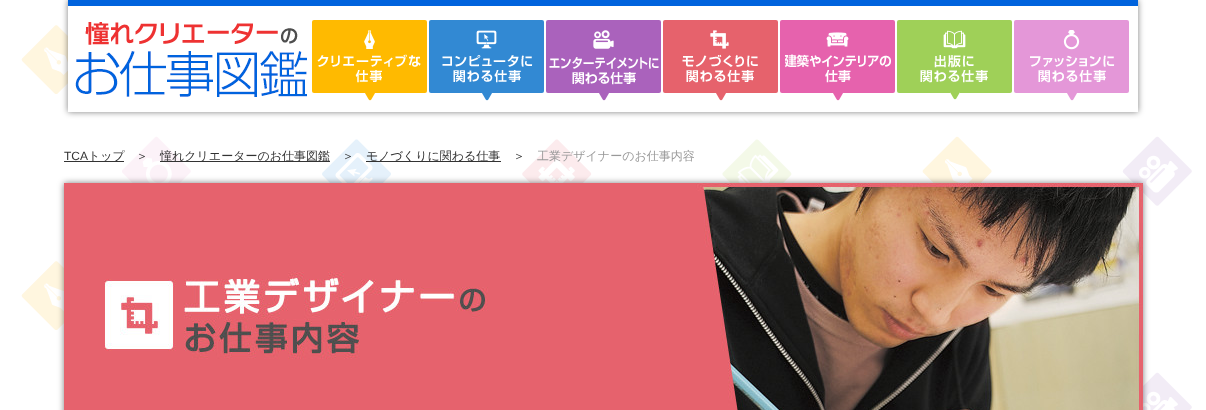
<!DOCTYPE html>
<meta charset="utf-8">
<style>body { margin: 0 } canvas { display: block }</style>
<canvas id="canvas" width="1206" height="410"></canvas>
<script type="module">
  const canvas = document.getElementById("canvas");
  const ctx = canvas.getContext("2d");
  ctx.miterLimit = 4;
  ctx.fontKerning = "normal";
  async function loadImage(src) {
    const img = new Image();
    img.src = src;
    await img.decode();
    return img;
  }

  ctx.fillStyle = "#ffffff";
  ctx.fillRect(0, 0, 1206, 410);
  ctx.drawImage(await loadImage("img1.png"), 21, 25, 1171, 385);
  ctx.fillStyle = "rgba(0, 0, 0, 0.5)";
  ctx.filter = "blur(3px)";
  ctx.beginPath();
  ctx.rect(68, 0, 1070, 112);
  ctx.fill();
  ctx.filter = "none";
  ctx.fillStyle = "#ffffff";
  ctx.fillRect(68, 6, 1070, 106);
  ctx.fillStyle = "#0063dd";
  ctx.fillRect(68, 0, 1070, 6);
  ctx.drawImage(await loadImage("img2.png"), 75, 22, 232, 75);
  ctx.fillStyle = "#ffba00";
  ctx.beginPath();
  ctx.roundRect(312, 20, 115, 73, 2);
  ctx.fill();
  ctx.drawImage(await loadImage("img3.png"), 317, 30, 104, 53);
  ctx.drawImage(await loadImage("img4.png"), 365, 93, 10, 8);
  ctx.fillStyle = "#3289d3";
  ctx.beginPath();
  ctx.roundRect(429, 20, 115, 73, 2);
  ctx.fill();
  ctx.drawImage(await loadImage("img5.png"), 442, 30, 91, 53);
  ctx.drawImage(await loadImage("img6.png"), 482, 93, 10, 8);
  ctx.fillStyle = "#aa62bc";
  ctx.beginPath();
  ctx.roundRect(546, 20, 115, 73, 2);
  ctx.fill();
  ctx.drawImage(await loadImage("img7.png"), 549, 30, 110, 55);
  ctx.drawImage(await loadImage("img8.png"), 599, 93, 10, 8);
  ctx.fillStyle = "#e6626c";
  ctx.beginPath();
  ctx.roundRect(663, 20, 115, 73, 2);
  ctx.fill();
  ctx.drawImage(await loadImage("img9.png"), 682, 30, 76, 53);
  ctx.drawImage(await loadImage("img10.png"), 716, 93, 10, 8);
  ctx.fillStyle = "#e662ad";
  ctx.beginPath();
  ctx.roundRect(780, 20, 115, 73, 2);
  ctx.fill();
  ctx.drawImage(await loadImage("img11.png"), 784, 32, 107, 51);
  ctx.drawImage(await loadImage("img12.png"), 833, 93, 10, 8);
  ctx.fillStyle = "#9fd058";
  ctx.beginPath();
  ctx.roundRect(897, 20, 115, 73, 2);
  ctx.fill();
  ctx.drawImage(await loadImage("img13.png"), 920, 30, 68, 53);
  ctx.drawImage(await loadImage("img14.png"), 950, 92, 10, 8);
  ctx.fillStyle = "#e497d8";
  ctx.beginPath();
  ctx.roundRect(1014, 20, 115, 73, 2);
  ctx.fill();
  ctx.drawImage(await loadImage("img15.png"), 1030, 30, 85, 53);
  ctx.drawImage(await loadImage("img16.png"), 1067, 93, 10, 8);
  ctx.font = "12px Liberation Sans";
  ctx.fillStyle = "#333333";
  ctx.fillText("TCA", 64, 160);
  ctx.fillRect(64, 161, 60, 1);
  ctx.font = "500 12px WenQuanYi Zen Hei";
  ctx.fillText("トップ", 88, 160);
  ctx.fillText("＞", 136, 160);
  ctx.fillRect(160, 161, 170, 1);
  ctx.fillText("憧れクリエーターのお仕事図鑑", 160, 160);
  ctx.fillText("＞", 342, 160);
  ctx.fillRect(366, 161, 135, 1);
  ctx.fillText("モノづくりに関わる仕事", 366, 160);
  ctx.fillText("＞", 513, 160);
  ctx.fillStyle = "#999999";
  ctx.fillText("工業デザイナーのお仕事内容", 537, 160);
  ctx.fillStyle = "rgba(0, 0, 0, 0.5)";
  ctx.filter = "blur(3px)";
  ctx.beginPath();
  ctx.rect(64, 183, 1079, 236);
  ctx.fill();
  ctx.filter = "none";
  ctx.drawImage(await loadImage("img17.png"), 64, 183, 1079, 227);
</script>
